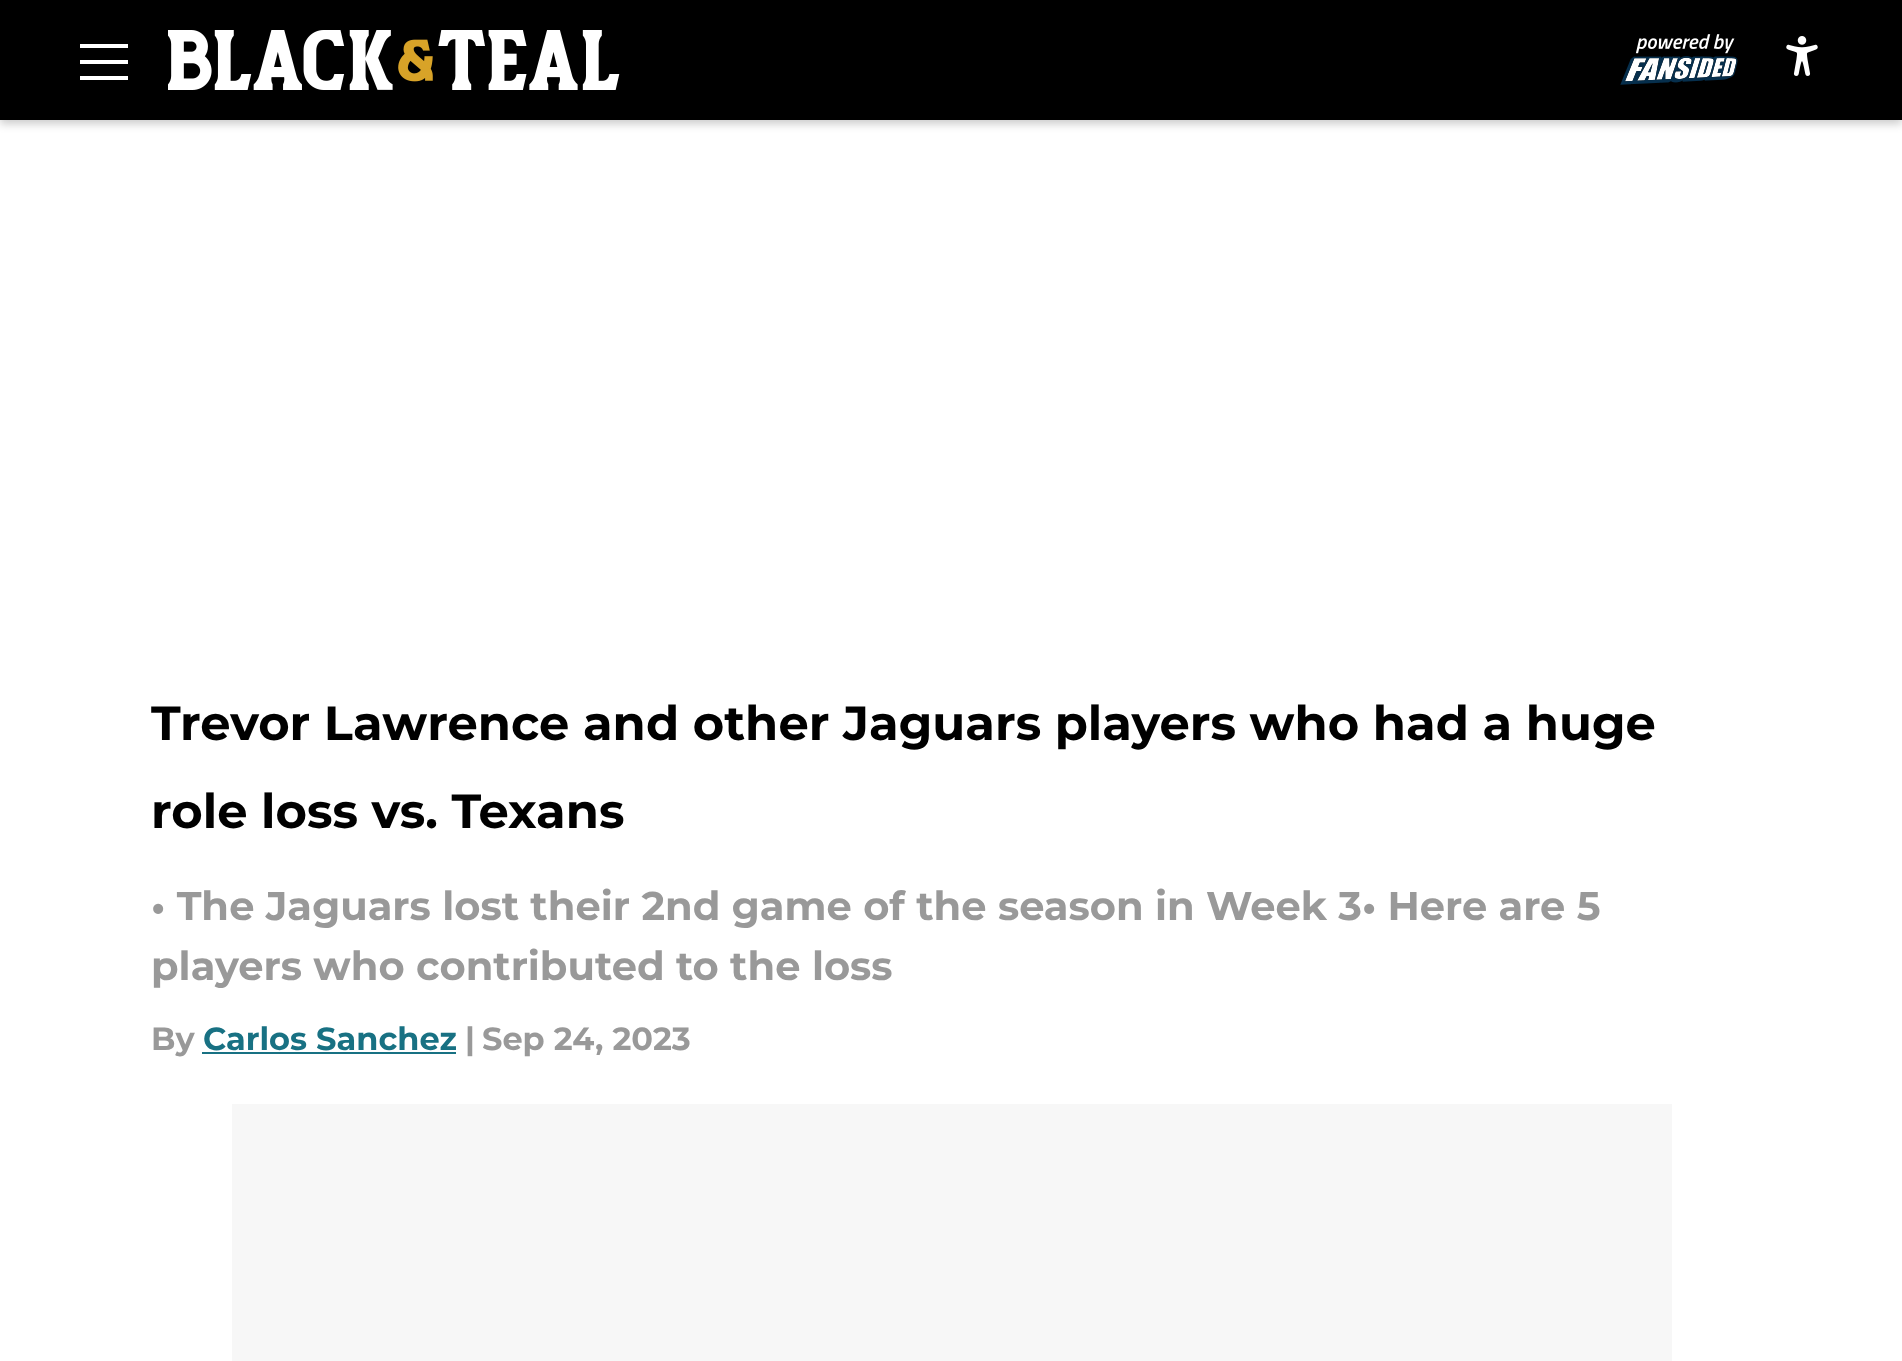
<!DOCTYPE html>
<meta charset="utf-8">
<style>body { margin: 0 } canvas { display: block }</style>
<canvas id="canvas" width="1902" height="1361"></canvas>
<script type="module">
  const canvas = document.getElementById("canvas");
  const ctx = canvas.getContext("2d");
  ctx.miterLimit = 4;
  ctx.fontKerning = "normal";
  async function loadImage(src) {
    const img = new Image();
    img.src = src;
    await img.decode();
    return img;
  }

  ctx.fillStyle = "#ffffff";
  ctx.fillRect(0, 0, 1902, 1361);
  ctx.fillStyle = "rgba(0, 0, 0, 0.2)";
  ctx.filter = "blur(4px)";
  ctx.beginPath();
  ctx.rect(0, 4, 1902, 120);
  ctx.fill();
  ctx.filter = "none";
  ctx.fillStyle = "#000000";
  ctx.fillRect(0, 0, 1902, 120);
  ctx.fillStyle = "#ffffff";
  ctx.fillRect(80, 44, 48, 4);
  ctx.fillRect(80, 60, 48, 4);
  ctx.fillRect(80, 76, 48, 4);
  ctx.drawImage(await loadImage("img1.png"), 168, 30, 452, 60);
  ctx.drawImage(await loadImage("img2.png"), 1620, 34, 118, 51);
  ctx.drawImage(await loadImage("img3.png"), 1786, 36, 32, 40);
  ctx.font = "100 48px Montserrat";
  ctx.fillStyle = "#000000";
  ctx.fillText("Trevor Lawrence and other Jaguars players who had a huge", 151, 740);
  ctx.fillText("role loss vs. Texans", 151, 828);
  ctx.font = "100 40px Montserrat";
  ctx.fillStyle = "#999999";
  ctx.fillText("• The Jaguars lost their 2nd game of the season in Week 3• Here are 5", 151, 920);
  ctx.fillText("players who contributed to the loss", 151, 980);
  ctx.font = "100 32px Montserrat";
  ctx.fillText("By", 151, 1050);
  ctx.fillStyle = "#187183";
  ctx.fillText("Carlos Sanchez", 203, 1050);
  ctx.fillRect(202, 1052, 254, 2);
  ctx.fillStyle = "#999999";
  ctx.fillText("|", 465, 1050);
  ctx.fillText("Sep 24, 2023", 482, 1050);
  ctx.fillStyle = "#f7f7f7";
  ctx.fillRect(232, 1104, 1440, 257);
</script>
